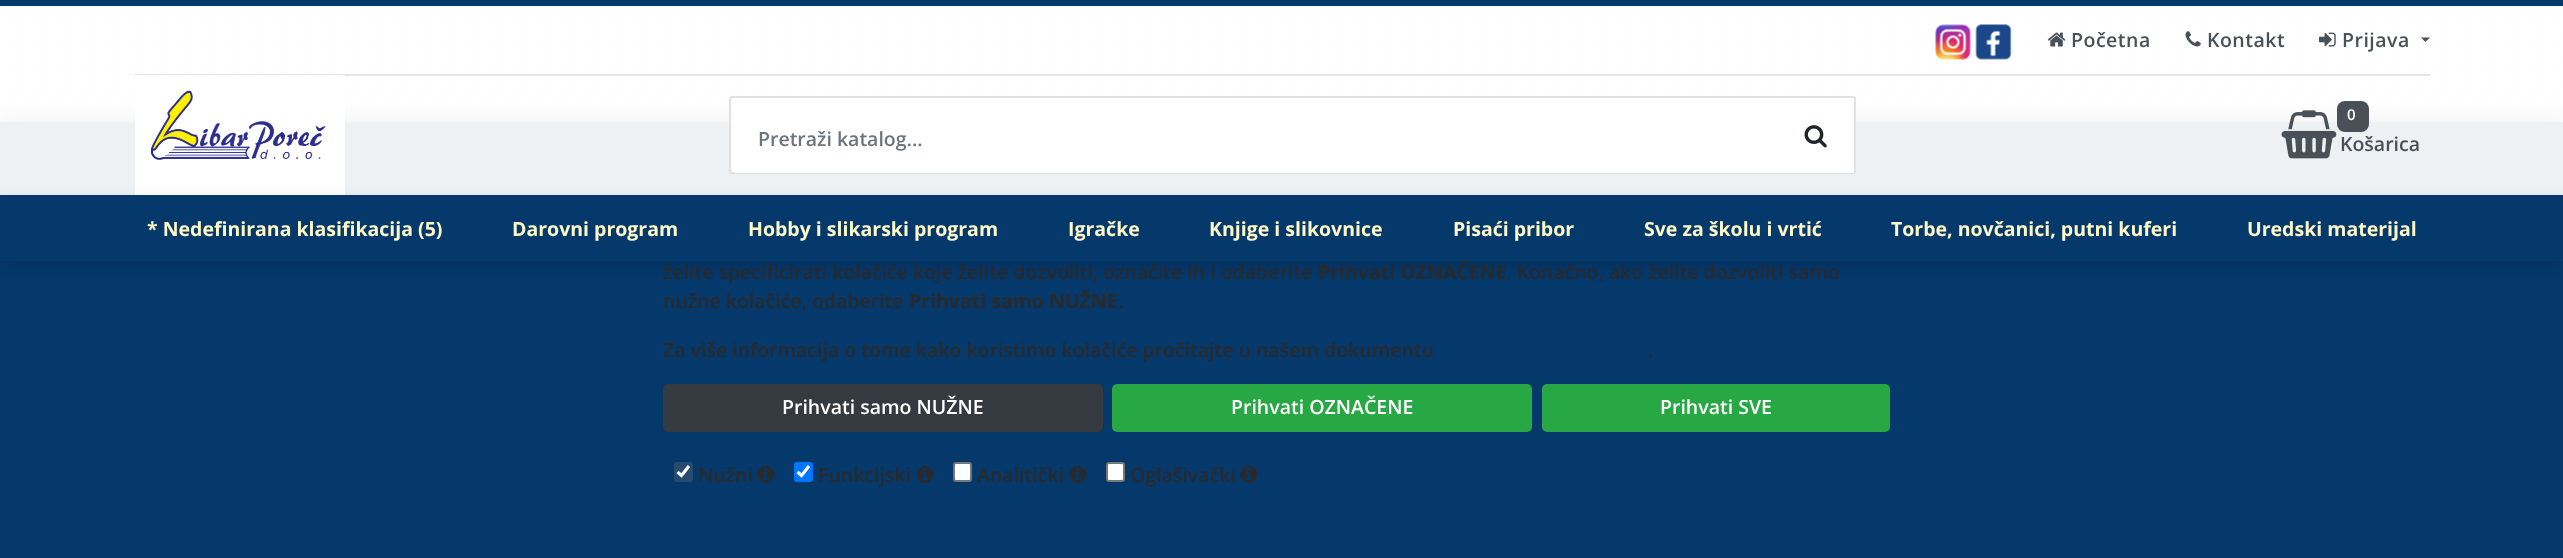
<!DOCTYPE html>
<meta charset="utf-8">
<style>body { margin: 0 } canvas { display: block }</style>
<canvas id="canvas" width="2563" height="558"></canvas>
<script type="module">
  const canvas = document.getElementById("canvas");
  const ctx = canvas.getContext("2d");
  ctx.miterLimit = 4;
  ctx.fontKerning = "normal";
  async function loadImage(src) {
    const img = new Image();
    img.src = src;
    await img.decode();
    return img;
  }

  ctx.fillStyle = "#f8f8f8";
  ctx.fillRect(0, 0, 2563, 558);
  ctx.drawImage(await loadImage("img1.png"), 1, 7, 2561, 115);
  ctx.fillStyle = "#121212";
  ctx.filter = "blur(10.5px)";
  ctx.beginPath();
  ctx.rect(0, 122, 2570, 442);
  ctx.fill();
  ctx.filter = "none";
  ctx.fillStyle = "#05386b";
  ctx.fillRect(0, 122, 2563, 436);
  ctx.fillStyle = "rgba(255, 255, 255, 0.93)";
  ctx.fillRect(0, 6, 2563, 189);
  ctx.fillStyle = "#05386b";
  ctx.fillRect(0, 0, 2563, 6);
  ctx.fillStyle = "rgba(0, 0, 0, 0.1)";
  ctx.fillRect(135, 74, 2295, 2);
  ctx.drawImage(await loadImage("img2.png"), 1935, 24, 36, 36);
  ctx.drawImage(await loadImage("img3.png"), 1975, 24, 37, 36);
  ctx.drawImage(await loadImage("img4.png"), 2047, 32, 19, 15);
  ctx.letterSpacing = "0.5px";
  ctx.font = "600 19.5px Open Sans";
  ctx.fillStyle = "#495057";
  ctx.fillText("Početna", 2071, 47);
  ctx.drawImage(await loadImage("img5.png"), 2185, 31, 16, 16);
  ctx.fillText("Kontakt", 2207, 47);
  ctx.drawImage(await loadImage("img6.png"), 2319, 32, 17, 15);
  ctx.fillText("Prijava", 2342, 47);
  ctx.beginPath();
  ctx.moveTo(2421, 37.5);
  ctx.lineTo(2430, 37.5);
  ctx.lineTo(2425.5, 42);
  ctx.closePath();
  ctx.fill();
  ctx.drawImage(await loadImage("img7.png"), 135, 75, 210, 120);
  ctx.beginPath();
  ctx.roundRect(730, 97, 1125, 76, 2);
  ctx.strokeStyle = "#e1e1e1";
  ctx.lineWidth = 2;
  ctx.stroke();
  ctx.fillStyle = "#ffffff";
  ctx.beginPath();
  ctx.roundRect(731, 98, 1123, 75, [5, 0, 0, 5]);
  ctx.fill();
  ctx.letterSpacing = "0px";
  ctx.fillStyle = "#6c757d";
  ctx.fillText("Pretraži katalog...", 758, 146);
  ctx.drawImage(await loadImage("img8.png"), 1804, 125, 23, 23);
  ctx.drawImage(await loadImage("img9.png"), 2281, 110, 56, 49);
  ctx.fillStyle = "#495057";
  ctx.beginPath();
  ctx.roundRect(2337, 101, 32, 31, 8);
  ctx.fill();
  ctx.font = "600 15px Open Sans";
  ctx.fillStyle = "#ffffff";
  ctx.fillText("0", 2347, 120);
  ctx.font = "600 19.5px Open Sans";
  ctx.fillStyle = "#495057";
  ctx.fillText("Košarica", 2340, 151);
  ctx.fillStyle = "rgba(0, 0, 0, 0.1)";
  ctx.filter = "blur(8px)";
  ctx.beginPath();
  ctx.rect(0, 200, 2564, 66);
  ctx.fill();
  ctx.filter = "none";
  ctx.font = "bold 19.5px Open Sans";
  ctx.fillStyle = "#2a2a2a";
  ctx.fillText("Prihvati OZNAČENE", 1318, 279);
  ctx.fillStyle = "#05386b";
  ctx.fillRect(0, 195, 2563, 66);
  ctx.fillStyle = "#fef9c7";
  ctx.fillText("* Nedefinirana klasifikacija (5)", 147, 236);
  ctx.fillText("Darovni program", 512, 236);
  ctx.fillText("Hobby i slikarski program", 748, 236);
  ctx.fillText("Igračke", 1068, 236);
  ctx.fillText("Knjige i slikovnice", 1209, 236);
  ctx.fillText("Pisaći pribor", 1453, 236);
  ctx.fillText("Sve za školu i vrtić", 1644, 236);
  ctx.fillText("Torbe, novčanici, putni kuferi", 1891, 236);
  ctx.fillText("Uredski materijal", 2247, 236);
  ctx.font = "600 19.5px Open Sans";
  ctx.fillStyle = "#2a2a2a";
  ctx.fillText("želite specificirati kolačiće koje želite dozvoliti, označite ih i odaberite", 663, 279);
  ctx.fillText(". Konačno, ako želite dozvoliti samo", 1506, 279);
  ctx.fillText("nužne kolačiće, odaberite", 663, 308);
  ctx.font = "bold 19.5px Open Sans";
  ctx.fillText("Prihvati samo NUŽNE", 909, 308);
  ctx.font = "600 19.5px Open Sans";
  ctx.fillText(".", 1118, 308);
  ctx.fillText("Za više informacija o tome kako koristimo kolačiće pročitajte u našem dokumentu", 663, 357);
  ctx.fillText(".", 1648, 357);
  ctx.fillStyle = "#343a40";
  ctx.beginPath();
  ctx.roundRect(664, 385, 438, 46, 4);
  ctx.fill();
  ctx.strokeStyle = "#343a40";
  ctx.stroke();
  ctx.fillStyle = "#ffffff";
  ctx.fillText("Prihvati samo NUŽNE", 782, 414);
  ctx.fillStyle = "#28a745";
  ctx.beginPath();
  ctx.roundRect(1113, 385, 418, 46, 4);
  ctx.fill();
  ctx.strokeStyle = "#28a745";
  ctx.stroke();
  ctx.fillStyle = "#ffffff";
  ctx.fillText("Prihvati OZNAČENE", 1231, 414);
  ctx.fillStyle = "#28a745";
  ctx.beginPath();
  ctx.roundRect(1543, 385, 346, 46, 4);
  ctx.fill();
  ctx.stroke();
  ctx.fillStyle = "#ffffff";
  ctx.fillText("Prihvati SVE", 1660, 414);
  ctx.fillStyle = "#274b6e";
  ctx.beginPath();
  ctx.roundRect(674, 462, 19, 20, 3);
  ctx.fill();
  ctx.beginPath();
  ctx.moveTo(677.5, 472);
  ctx.lineTo(681.5, 475.5);
  ctx.lineTo(689, 466);
  ctx.strokeStyle = "#ffffff";
  ctx.lineWidth = 3.1;
  ctx.stroke();
  ctx.fillStyle = "#2a2a2a";
  ctx.fillText("Nužni", 698, 482);
  ctx.drawImage(await loadImage("img10.png"), 757, 466, 18, 17);
  ctx.fillStyle = "#0075ff";
  ctx.beginPath();
  ctx.roundRect(794, 462, 19, 20, 3);
  ctx.fill();
  ctx.beginPath();
  ctx.moveTo(797.5, 472);
  ctx.lineTo(801.5, 475.5);
  ctx.lineTo(809, 466);
  ctx.stroke();
  ctx.fillStyle = "#2a2a2a";
  ctx.fillText("Funkcijski", 818, 482);
  ctx.drawImage(await loadImage("img10.png"), 916, 466, 18, 17);
  ctx.fillStyle = "#ffffff";
  ctx.beginPath();
  ctx.roundRect(954, 463, 17, 18, 2);
  ctx.fill();
  ctx.strokeStyle = "#767676";
  ctx.lineWidth = 2;
  ctx.stroke();
  ctx.fillStyle = "#2a2a2a";
  ctx.fillText("Analitički", 977, 482);
  ctx.drawImage(await loadImage("img10.png"), 1069, 466, 18, 17);
  ctx.fillStyle = "#ffffff";
  ctx.beginPath();
  ctx.roundRect(1107, 463, 17, 18, 2);
  ctx.fill();
  ctx.stroke();
  ctx.fillStyle = "#2a2a2a";
  ctx.fillText("Oglašivački", 1130, 482);
  ctx.drawImage(await loadImage("img10.png"), 1240, 466, 18, 17);
</script>
